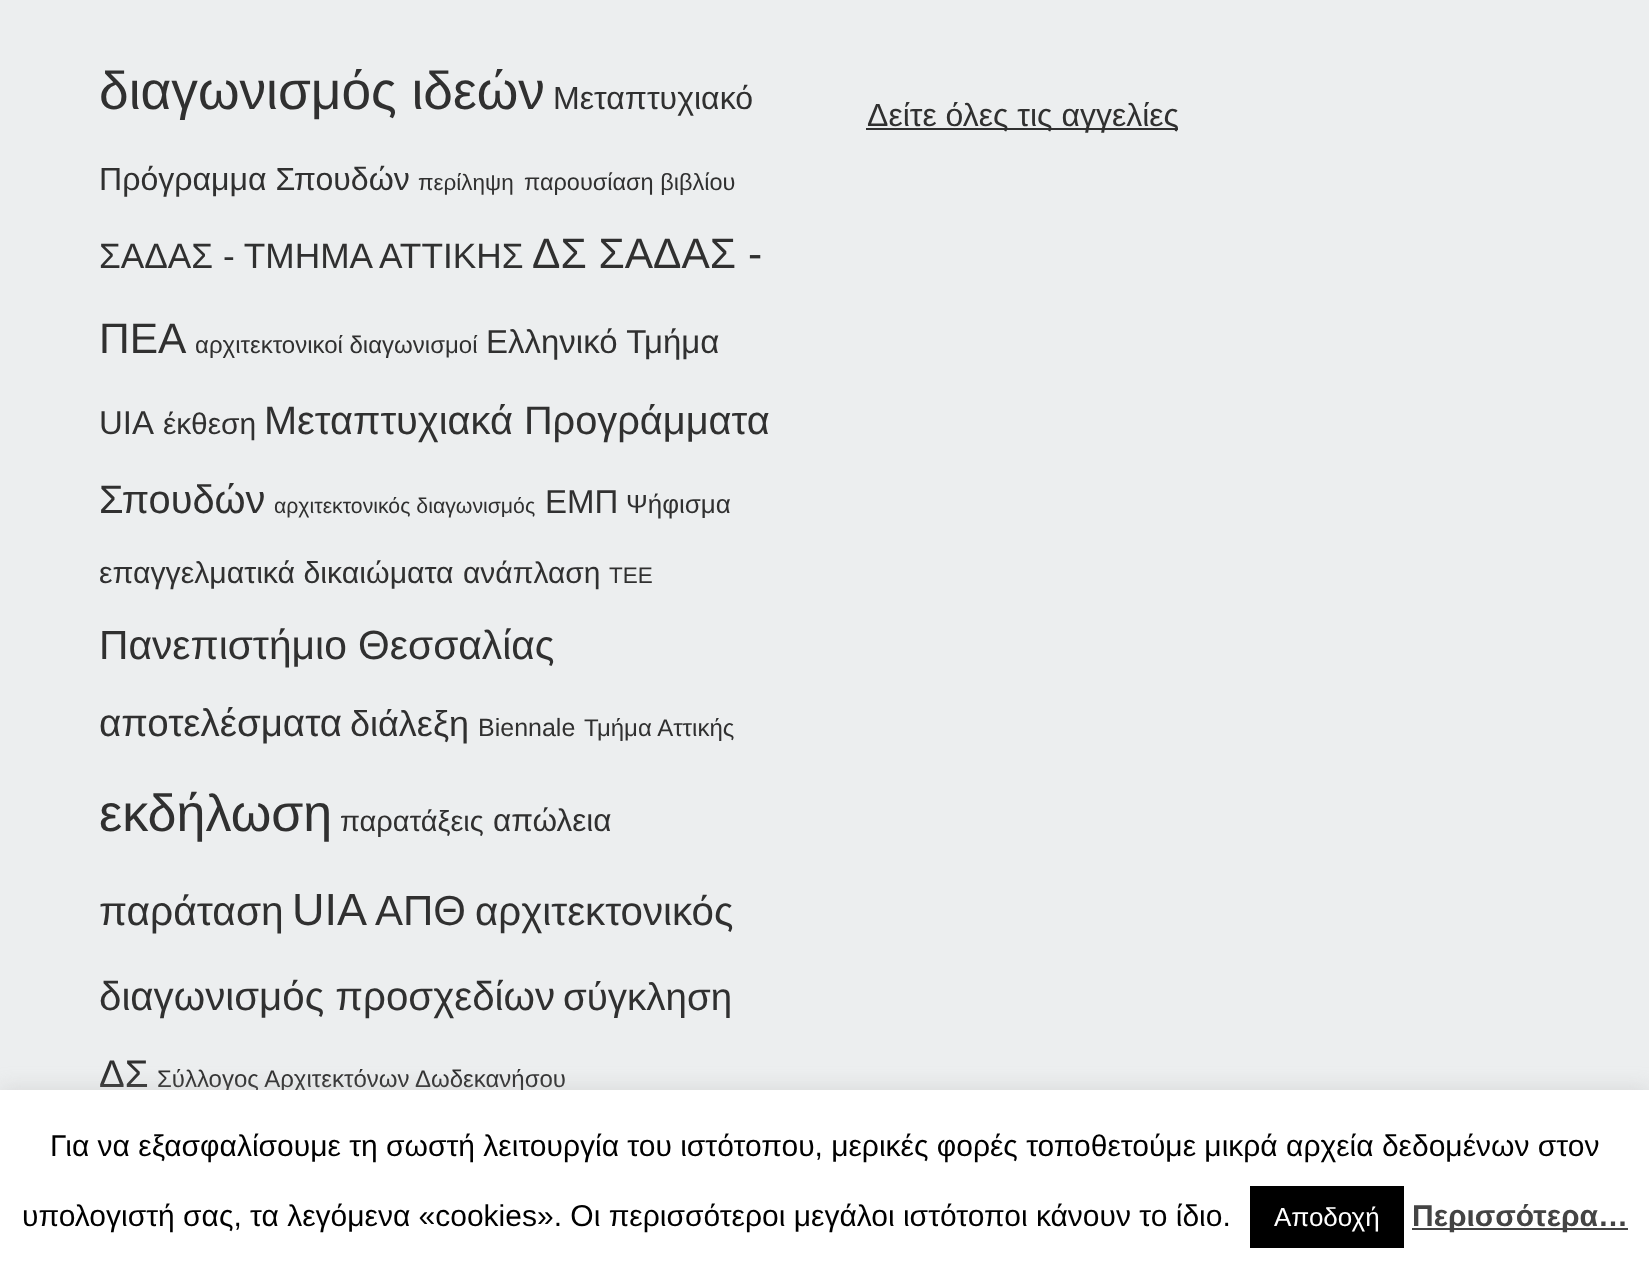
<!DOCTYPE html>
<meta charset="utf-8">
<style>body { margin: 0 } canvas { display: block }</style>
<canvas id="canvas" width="1649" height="1271"></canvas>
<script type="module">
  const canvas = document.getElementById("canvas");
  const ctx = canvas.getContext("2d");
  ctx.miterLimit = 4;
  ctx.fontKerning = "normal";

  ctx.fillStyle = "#eceeef";
  ctx.fillRect(0, 0, 1649, 1271);
  ctx.font = "53.25px Liberation Sans";
  ctx.fillStyle = "#303030";
  ctx.fillText("διαγωνισμός ιδεών", 99, 109);
  ctx.font = "32.1px Liberation Sans";
  ctx.fillText("Μεταπτυχιακό", 553, 109);
  ctx.fillText("Πρόγραμμα Σπουδών", 99, 190);
  ctx.font = "22.5px Liberation Sans";
  ctx.fillText("περίληψη", 418, 190);
  ctx.font = "23.5px Liberation Sans";
  ctx.fillText("παρουσίαση βιβλίου", 524, 190);
  ctx.font = "35.25px Liberation Sans";
  ctx.fillText("ΣΑΔΑΣ - ΤΜΗΜΑ ΑΤΤΙΚΗΣ", 99, 268);
  ctx.font = "42.5px Liberation Sans";
  ctx.fillText("ΔΣ ΣΑΔΑΣ -", 532, 268);
  ctx.fillText("ΠΕΑ", 99, 353);
  ctx.font = "24px Liberation Sans";
  ctx.fillText("αρχιτεκτονικοί διαγωνισμοί", 195, 353);
  ctx.font = "33px Liberation Sans";
  ctx.fillText("Ελληνικό Τμήμα", 486, 353);
  ctx.fillText("UIA", 99, 434);
  ctx.font = "30px Liberation Sans";
  ctx.fillText("έκθεση", 163, 434);
  ctx.font = "39.75px Liberation Sans";
  ctx.fillText("Μεταπτυχιακά Προγράμματα", 264, 434);
  ctx.fillText("Σπουδών", 99, 513);
  ctx.font = "21.25px Liberation Sans";
  ctx.fillText("αρχιτεκτονικός διαγωνισμός", 274, 513);
  ctx.font = "33px Liberation Sans";
  ctx.fillText("ΕΜΠ", 545, 513);
  ctx.font = "26px Liberation Sans";
  ctx.fillText("Ψήφισμα", 626, 513);
  ctx.font = "30.25px Liberation Sans";
  ctx.fillText("επαγγελματικά δικαιώματα", 99, 583);
  ctx.font = "30px Liberation Sans";
  ctx.fillText("ανάπλαση", 463, 583);
  ctx.font = "22.5px Liberation Sans";
  ctx.fillText("ΤΕΕ", 609, 583);
  ctx.font = "40.75px Liberation Sans";
  ctx.fillText("Πανεπιστήμιο Θεσσαλίας", 99, 659);
  ctx.font = "38.5px Liberation Sans";
  ctx.fillText("αποτελέσματα", 99, 736);
  ctx.font = "36px Liberation Sans";
  ctx.fillText("διάλεξη", 350, 736);
  ctx.font = "25px Liberation Sans";
  ctx.fillText("Biennale", 478, 736);
  ctx.font = "24px Liberation Sans";
  ctx.fillText("Τμήμα Αττικής", 584, 736);
  ctx.font = "52px Liberation Sans";
  ctx.fillText("εκδήλωση", 99, 831);
  ctx.font = "29px Liberation Sans";
  ctx.fillText("παρατάξεις", 340, 831);
  ctx.font = "31.5px Liberation Sans";
  ctx.fillText("απώλεια", 493, 831);
  ctx.font = "40.75px Liberation Sans";
  ctx.fillText("παράταση", 99, 925);
  ctx.font = "45px Liberation Sans";
  ctx.fillText("UIA", 292, 925);
  ctx.font = "42px Liberation Sans";
  ctx.fillText("ΑΠΘ", 375, 925);
  ctx.font = "40.25px Liberation Sans";
  ctx.fillText("αρχιτεκτονικός", 475, 925);
  ctx.fillText("διαγωνισμός προσχεδίων", 99, 1010);
  ctx.font = "38.5px Liberation Sans";
  ctx.fillText("σύγκληση", 563, 1010);
  ctx.fillText("ΔΣ", 99, 1087);
  ctx.font = "24px Liberation Sans";
  ctx.fillText("Σύλλογος Αρχιτεκτόνων Δωδεκανήσου", 157, 1087);
  ctx.fillRect(866, 128, 312, 2);
  ctx.font = "32px Liberation Sans";
  ctx.fillText("Δείτε όλες τις αγγελίες", 867, 126);
  ctx.fillStyle = "rgba(172, 171, 171, 0.3)";
  ctx.filter = "blur(10px)";
  ctx.beginPath();
  ctx.rect(0, 1088, 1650, 182);
  ctx.fill();
  ctx.filter = "none";
  ctx.fillStyle = "#ffffff";
  ctx.fillRect(0, 1090, 1649, 181);
  ctx.font = "30px Liberation Sans";
  ctx.fillStyle = "#000000";
  ctx.fillText("Για να εξασφαλίσουμε τη σωστή λειτουργία του ιστότοπου, μερικές φορές τοποθετούμε μικρά αρχεία δεδομένων στον", 50, 1156);
  ctx.fillText("υπολογιστή σας, τα λεγόμενα «cookies». Οι περισσότεροι μεγάλοι ιστότοποι κάνουν το ίδιο.", 22, 1226);
  ctx.fillRect(1250, 1186, 154, 62);
  ctx.font = "26px Liberation Sans";
  ctx.fillStyle = "#ffffff";
  ctx.fillText("Αποδοχή", 1274, 1226);
  ctx.fillStyle = "#444444";
  ctx.fillRect(1412, 1228, 216, 2);
  ctx.font = "bold 30px Liberation Sans";
  ctx.fillText("Περισσότερα…", 1412, 1226);
</script>
